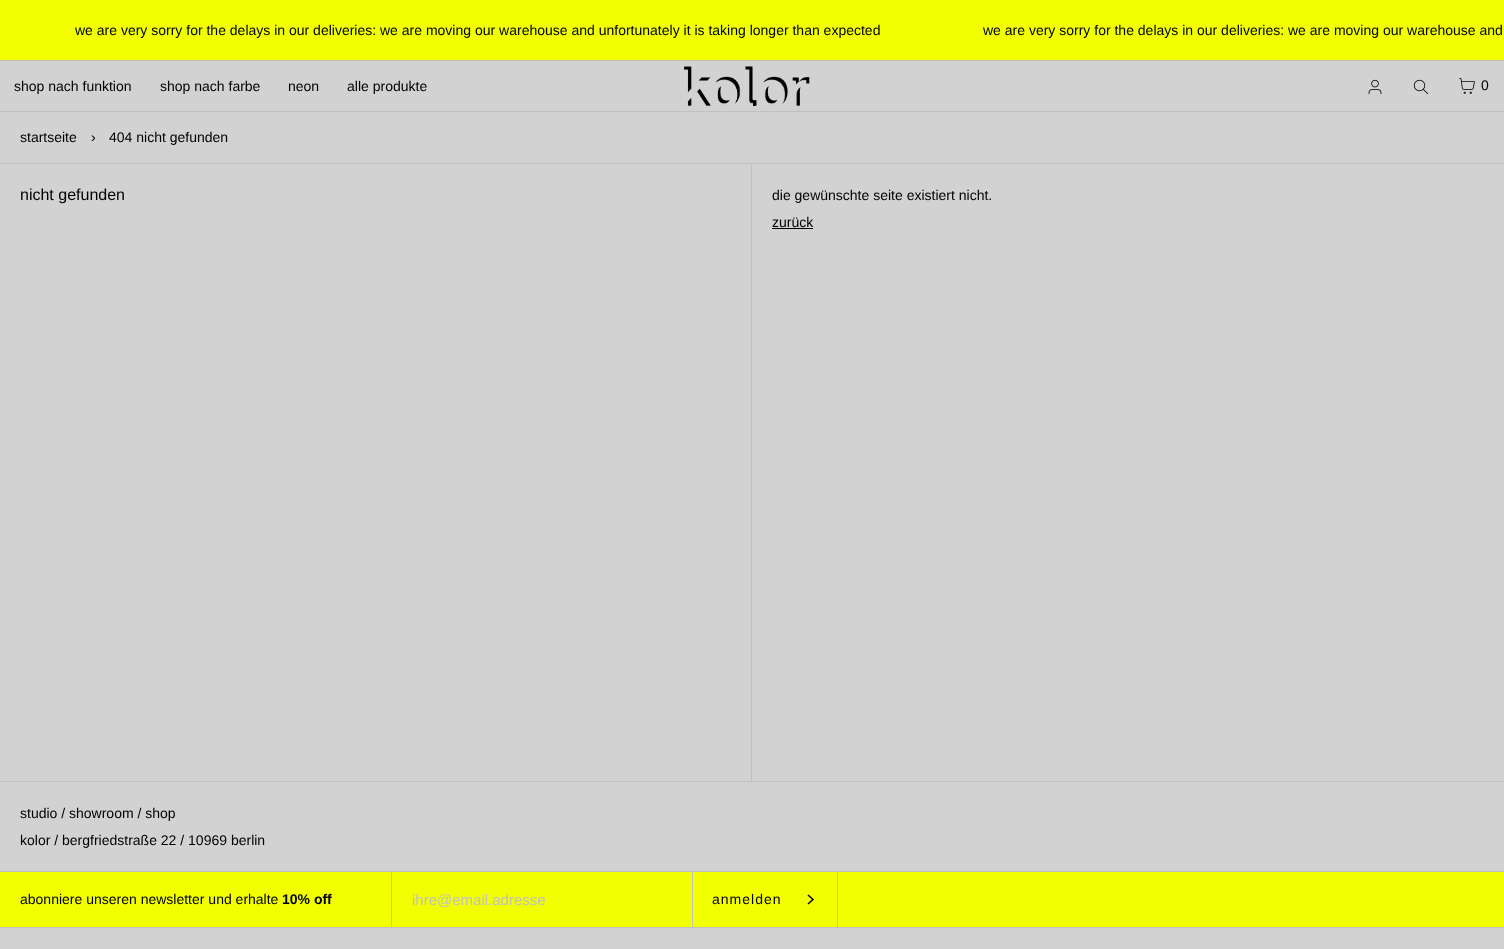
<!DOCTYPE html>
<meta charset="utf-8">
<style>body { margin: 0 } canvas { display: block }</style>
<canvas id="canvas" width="1504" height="949"></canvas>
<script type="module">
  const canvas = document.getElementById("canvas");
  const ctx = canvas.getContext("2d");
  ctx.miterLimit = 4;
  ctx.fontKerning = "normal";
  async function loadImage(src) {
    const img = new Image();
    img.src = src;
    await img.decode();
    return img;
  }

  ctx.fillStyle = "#d2d2d2";
  ctx.fillRect(0, 0, 1504, 949);
  ctx.fillStyle = "#f2ff00";
  ctx.fillRect(0, 0, 1504, 60);
  ctx.fillStyle = "#c0c0c0";
  ctx.fillRect(0, 60, 1504, 1);
  ctx.font = "14px Liberation Sans";
  ctx.fillStyle = "#000000";
  ctx.fillText("we are very sorry for the delays in our deliveries: we are moving our warehouse and unfortunately it is taking longer than expected", 75, 35);
  ctx.fillText("we are very sorry for the delays in our deliveries: we are moving our warehouse and", 983, 35);
  ctx.fillStyle = "#c0c0c0";
  ctx.fillRect(0, 111, 1504, 1);
  ctx.fillStyle = "#000000";
  ctx.fillText("shop nach funktion", 14, 91);
  ctx.fillText("shop nach farbe", 160, 91);
  ctx.fillText("neon", 288, 91);
  ctx.fillText("alle produkte", 347, 91);
  ctx.drawImage(await loadImage("img1.png"), 684, 66, 126, 40);
  ctx.drawImage(await loadImage("img2.png"), 1368, 79, 14, 16);
  ctx.drawImage(await loadImage("img3.png"), 1413, 79, 16, 16);
  ctx.drawImage(await loadImage("img4.png"), 1459, 78, 16, 16);
  ctx.letterSpacing = "1px";
  ctx.fillText("0", 1481, 90);
  ctx.fillStyle = "#c0c0c0";
  ctx.fillRect(0, 163, 1504, 1);
  ctx.letterSpacing = "0px";
  ctx.fillStyle = "#000000";
  ctx.fillText("startseite", 20, 142);
  ctx.fillText("›", 91, 142);
  ctx.fillText("404 nicht gefunden", 109, 142);
  ctx.fillStyle = "#c0c0c0";
  ctx.fillRect(751, 164, 1, 617);
  ctx.font = "16px Liberation Sans";
  ctx.fillStyle = "#000000";
  ctx.fillText("nicht gefunden", 20, 200);
  ctx.font = "14px Liberation Sans";
  ctx.fillText("die gewünschte seite existiert nicht.", 772, 200);
  ctx.fillText("zurück", 772, 227);
  ctx.fillStyle = "#000001";
  ctx.fillRect(772, 228, 41, 1);
  ctx.strokeStyle = "#c0c0c0";
  ctx.strokeRect(-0.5, 781.5, 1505, 90);
  ctx.fillStyle = "#000000";
  ctx.fillText("studio / showroom / shop", 20, 818);
  ctx.fillText("kolor / bergfriedstraße 22 / 10969 berlin", 20, 845);
  ctx.fillStyle = "#f2ff00";
  ctx.fillRect(0, 872, 1504, 55);
  ctx.fillStyle = "#c0c0c0";
  ctx.fillRect(391, 872, 1, 55);
  ctx.fillRect(837, 872, 1, 55);
  ctx.fillRect(692, 872, 1, 55);
  ctx.strokeRect(-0.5, 871.5, 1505, 56);
  ctx.fillStyle = "#000000";
  ctx.fillText("abonniere unseren newsletter und erhalte", 20, 904);
  ctx.font = "bold 14px Liberation Sans";
  ctx.fillText("10% off", 282, 904);
  ctx.font = "15px Liberation Sans";
  ctx.fillStyle = "#c0c0c0";
  ctx.fillText("ihre@email.adresse", 412, 905);
  ctx.letterSpacing = "1px";
  ctx.font = "14px Liberation Sans";
  ctx.fillStyle = "#000000";
  ctx.fillText("anmelden", 712, 904);
  ctx.beginPath();
  ctx.moveTo(808, 895);
  ctx.lineTo(813, 899.5);
  ctx.lineTo(808, 904);
  ctx.strokeStyle = "#000000";
  ctx.lineWidth = 1.5;
  ctx.stroke();
</script>
